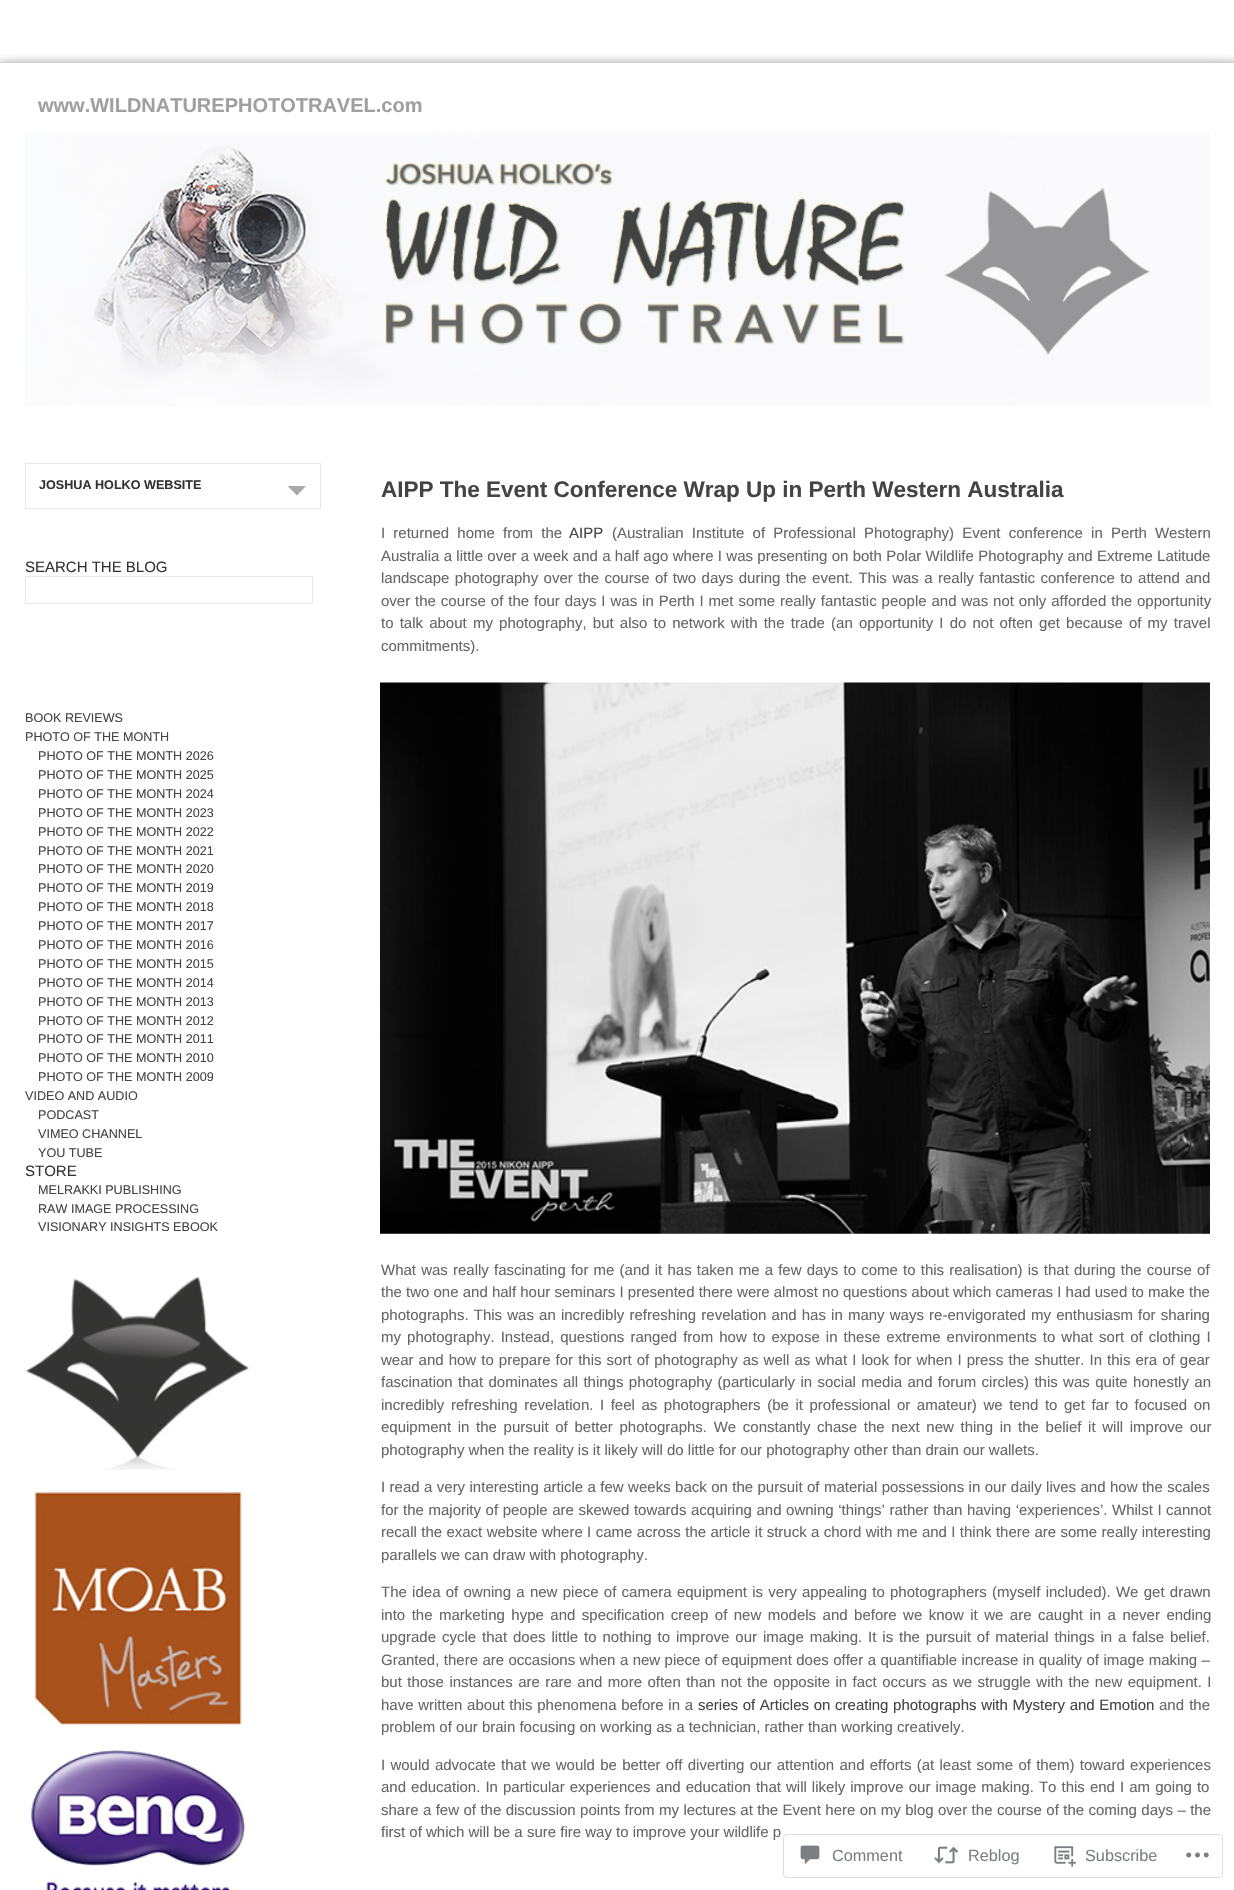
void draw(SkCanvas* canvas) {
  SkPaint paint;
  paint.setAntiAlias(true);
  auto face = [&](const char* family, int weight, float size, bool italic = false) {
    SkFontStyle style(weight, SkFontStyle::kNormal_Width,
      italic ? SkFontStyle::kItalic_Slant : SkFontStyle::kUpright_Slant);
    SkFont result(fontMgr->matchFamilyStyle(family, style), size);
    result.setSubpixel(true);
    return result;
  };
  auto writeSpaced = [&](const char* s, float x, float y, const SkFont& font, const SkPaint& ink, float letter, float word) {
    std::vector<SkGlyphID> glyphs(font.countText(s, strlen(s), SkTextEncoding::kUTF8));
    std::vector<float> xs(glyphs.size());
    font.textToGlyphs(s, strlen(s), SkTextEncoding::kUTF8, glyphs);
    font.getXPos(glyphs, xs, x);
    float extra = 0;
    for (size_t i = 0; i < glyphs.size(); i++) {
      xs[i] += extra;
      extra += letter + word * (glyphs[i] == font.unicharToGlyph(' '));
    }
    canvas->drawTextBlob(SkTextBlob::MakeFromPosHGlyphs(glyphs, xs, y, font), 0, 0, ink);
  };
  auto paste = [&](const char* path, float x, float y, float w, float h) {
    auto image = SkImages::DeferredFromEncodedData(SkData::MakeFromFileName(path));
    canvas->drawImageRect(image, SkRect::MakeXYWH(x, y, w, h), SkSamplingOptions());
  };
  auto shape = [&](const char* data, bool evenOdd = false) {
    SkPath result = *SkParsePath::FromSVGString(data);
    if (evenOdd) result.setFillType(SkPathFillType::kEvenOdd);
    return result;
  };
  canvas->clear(0xffffffff);
  canvas->save();
  canvas->clipRect(SkRect::MakeXYWH(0, 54, 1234, 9));
  paint.setColor(0x30000000);
  paint.setMaskFilter(SkMaskFilter::MakeBlur(kNormal_SkBlurStyle, 12.5f));
  canvas->drawRect(SkRect::MakeXYWH(0, 70, 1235, 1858), paint);
  paint.setMaskFilter(nullptr);
  canvas->restore();
  canvas->save();
  canvas->clipRect(SkRect::MakeXYWH(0, 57, 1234, 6));
  paint.setColor(0x33000000);
  paint.setMaskFilter(SkMaskFilter::MakeBlur(kNormal_SkBlurStyle, 3));
  canvas->drawRect(SkRect::MakeXYWH(-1, 61, 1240, 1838), paint);
  paint.setMaskFilter(nullptr);
  canvas->restore();
  paste("img/1.png", 25, 132, 1185, 274);
  {
    const struct { float x, y, w, h; SkColor color; } items[] = {
      {25, 463, 296, 1, 0xffe8e8e8},
      {320, 463, 1, 46, 0xffe8e8e8},
      {25, 463, 1, 46, 0xffe8e8e8},
      {26, 508, 294, 1, 0xffe8e8e8},
    };
    for (auto [x, y, w, h, color] : items) {
      paint.setColor(color);
      canvas->drawRect(SkRect::MakeXYWH(x, y, w, h), paint);
    }
  }
  paint.setColor(0xffaaaaaa);
  canvas->drawPath(shape("M287.5 486H306L297 495.5Z"), paint);
  paint.setStroke(true);
  paint.setStrokeWidth(1);
  paint.setColor(0xffe8e8e8);
  canvas->drawRect(SkRect::MakeXYWH(25.5f, 576.5f, 287, 27), paint);
  paste("img/2.png", 26, 1276, 223, 194);
  paste("img/3.png", 33, 1491, 209, 235);
  paste("img/4.png", 31, 1749, 215, 141);
  paste("img/5.png", 380, 682, 830, 552);
  paint.setColor(0xfadcdcde);
  canvas->drawRoundRect(SkRect::MakeXYWH(783.5f, 1834.5f, 439, 43), 3.5f, 3.5f, paint);
  paste("img/6.png", 800, 1845, 20, 20);
  paste("img/7.png", 934, 1846, 25, 18);
  paste("img/8.png", 1054, 1846, 22, 21);
  paste("img/9.png", 1186, 1852, 23, 6);
  auto f0 = face("Liberation Sans", 700, 20);
  paint.setStroke(false);
  paint.setColor(0xffa0a0a0);
  canvas->drawString("www.WILDNATUREPHOTOTRAVEL.com", 38, 112, f0, paint);
  auto f1 = face("Liberation Sans", 700, 12.6f);
  paint.setColor(0xff333333);
  canvas->drawString("JOSHUA HOLKO WEBSITE", 39, 489, f1, paint);
  auto f2 = face("Arimo", 400, 15);
  canvas->drawString("SEARCH THE BLOG", 25, 572, f2, paint);
  auto f3 = face("Liberation Sans", 400, 12.6f);
  paint.setColor(0xff444444);
  {
    const struct { const char* s; float x, y; } items[] = {
      {"BOOK REVIEWS", 25, 722},
      {"PHOTO OF THE MONTH", 25, 741},
      {"PHOTO OF THE MONTH 2026", 38, 760},
      {"PHOTO OF THE MONTH 2025", 38, 779},
      {"PHOTO OF THE MONTH 2024", 38, 798},
      {"PHOTO OF THE MONTH 2023", 38, 817},
      {"PHOTO OF THE MONTH 2022", 38, 836},
      {"PHOTO OF THE MONTH 2021", 38, 855},
      {"PHOTO OF THE MONTH 2020", 38, 873},
      {"PHOTO OF THE MONTH 2019", 38, 892},
      {"PHOTO OF THE MONTH 2018", 38, 911},
      {"PHOTO OF THE MONTH 2017", 38, 930},
      {"PHOTO OF THE MONTH 2016", 38, 949},
      {"PHOTO OF THE MONTH 2015", 38, 968},
      {"PHOTO OF THE MONTH 2014", 38, 987},
      {"PHOTO OF THE MONTH 2013", 38, 1006},
      {"PHOTO OF THE MONTH 2012", 38, 1025},
      {"PHOTO OF THE MONTH 2011", 38, 1043},
      {"PHOTO OF THE MONTH 2010", 38, 1062},
      {"PHOTO OF THE MONTH 2009", 38, 1081},
      {"VIDEO AND AUDIO", 25, 1100},
      {"PODCAST", 38, 1119},
      {"VIMEO CHANNEL", 38, 1138},
      {"YOU TUBE", 38, 1157},
    };
    for (auto [s, x, y] : items) {
      canvas->drawString(s, x, y, f3, paint);
    }
  }
  paint.setColor(0xff333333);
  canvas->drawString("STORE", 25, 1176, f2, paint);
  paint.setColor(0xff444444);
  {
    const struct { const char* s; float x, y; } items[] = {
      {"MELRAKKI PUBLISHING", 38, 1194},
      {"RAW IMAGE PROCESSING", 38, 1213},
      {"VISIONARY INSIGHTS EBOOK", 38, 1231},
    };
    for (auto [s, x, y] : items) {
      canvas->drawString(s, x, y, f3, paint);
    }
  }
  auto f4 = face("Liberation Sans", 700, 22.5f);
  canvas->drawString("AIPP The Event Conference Wrap Up in Perth Western Australia", 381, 497, f4, paint);
  auto f5 = face("Liberation Sans", 400, 15);
  paint.setColor(0xff666666);
  writeSpaced("I returned home from the", 381, 538, f5, paint, 0, 4);
  paint.setColor(0xff444444);
  canvas->drawString("AIPP", 569, 538, f5, paint);
  paint.setColor(0xff666666);
  writeSpaced("(Australian Institute of Professional Photography) Event conference in Perth Western", 612, 538, f5, paint, 0, 4);
  writeSpaced("Australia a little over a week and a half ago where I was presenting on both Polar Wildlife Photography and Extreme Latitude", 381, 561, f5, paint, 0, 0.15f);
  writeSpaced("landscape photography over the course of two days during the event. This was a really fantastic conference to attend and", 381, 583, f5, paint, 0, 1.25f);
  writeSpaced("over the course of the four days I was in Perth I met some really fantastic people and was not only afforded the opportunity", 381, 606, f5, paint, 0, 0.75f);
  writeSpaced("to talk about my photography, but also to network with the trade (an opportunity I do not often get because of my travel", 381, 628, f5, paint, 0, 2);
  canvas->drawString("commitments).", 381, 651, f5, paint);
  writeSpaced("What was really fascinating for me (and it has taken me a few days to come to this realisation) is that during the course of", 381, 1275, f5, paint, 0, 1);
  canvas->drawString("the two one and half hour seminars I presented there were almost no questions about which cameras I had used to make the", 381, 1297, f5, paint);
  writeSpaced("photographs. This was an incredibly refreshing revelation and has in many ways re-envigorated my enthusiasm for sharing", 381, 1320, f5, paint, 0, 1);
  writeSpaced("my photography. Instead, questions ranged from how to expose in these extreme environments to what sort of clothing I", 381, 1342, f5, paint, 0, 1.9f);
  writeSpaced("wear and how to prepare for this sort of photography as well as what I look for when I press the shutter. In this era of gear", 381, 1365, f5, paint, 0, 0.9f);
  writeSpaced("fascination that dominates all things photography (particularly in social media and forum circles) this was quite honestly an", 381, 1387, f5, paint, 0, 1.2f);
  writeSpaced("incredibly refreshing revelation. I feel as photographers (be it professional or amateur) we tend to get far to focused on", 381, 1410, f5, paint, 0, 2.4f);
  writeSpaced("equipment in the pursuit of better photographs. We constantly chase the next new thing in the belief it will improve our", 381, 1432, f5, paint, 0, 2.5f);
  canvas->drawString("photography when the reality is it likely will do little for our photography other than drain our wallets.", 381, 1455, f5, paint);
  writeSpaced("I read a very interesting article a few weeks back on the pursuit of material possessions in our daily lives and how the scales", 381, 1492, f5, paint, 0, 0.25f);
  writeSpaced("for the majority of people are skewed towards acquiring and owning ‘things’ rather than having ‘experiences’. Whilst I cannot", 381, 1515, f5, paint, 0, 0.4f);
  writeSpaced("recall the exact website where I came across the article it struck a chord with me and I think there are some really interesting", 381, 1537, f5, paint, 0, 0.2f);
  canvas->drawString("parallels we can draw with photography.", 381, 1560, f5, paint);
  writeSpaced("The idea of owning a new piece of camera equipment is very appealing to photographers (myself included). We get drawn", 381, 1597, f5, paint, 0, 1.1f);
  writeSpaced("into the marketing hype and specification creep of new models and before we know it we are caught in a never ending", 381, 1620, f5, paint, 0, 2.3f);
  writeSpaced("upgrade cycle that does little to nothing to improve our image making. It is the pursuit of material things in a false belief.", 381, 1642, f5, paint, 0, 1.75f);
  writeSpaced("Granted, there are occasions when a new piece of equipment does offer a quantifiable increase in quality of image making –", 381, 1665, f5, paint, 0, 0.25f);
  writeSpaced("but those instances are rare and more often than not the opposite in fact occurs as we struggle with the new equipment. I", 381, 1687, f5, paint, 0, 1.25f);
  writeSpaced("have written about this phenomena before in a", 381, 1710, f5, paint, 0, 0.5f);
  paint.setColor(0xff444444);
  writeSpaced("series of Articles on creating photographs with Mystery and Emotion", 698, 1710, f5, paint, 0, 0.5f);
  paint.setColor(0xff666666);
  writeSpaced("and the", 1159, 1710, f5, paint, 0, 1);
  canvas->drawString("problem of our brain focusing on working as a technician, rather than working creatively.", 381, 1732, f5, paint);
  writeSpaced("I would advocate that we would be better off diverting our attention and efforts (at least some of them) toward experiences", 381, 1770, f5, paint, 0, 1.1f);
  writeSpaced("and education. In particular experiences and education that will likely improve our image making. To this end I am going to", 381, 1792, f5, paint, 0, 0.9f);
  writeSpaced("share a few of the discussion points from my lectures at the Event here on my blog over the course of the coming days – the", 381, 1815, f5, paint, 0, 0.25f);
  canvas->drawString("first of which will be a sure fire way to improve your wildlife p", 381, 1837, f5, paint);
  auto f6 = face("Liberation Sans", 400, 16.25f);
  paint.setColor(0xff7b7f85);
  {
    const struct { const char* s; float x, y; } items[] = {
      {"Comment", 832, 1861},
      {"Reblog", 968, 1861},
      {"Subscribe", 1085, 1861},
    };
    for (auto [s, x, y] : items) {
      canvas->drawString(s, x, y, f6, paint);
    }
  }
}
